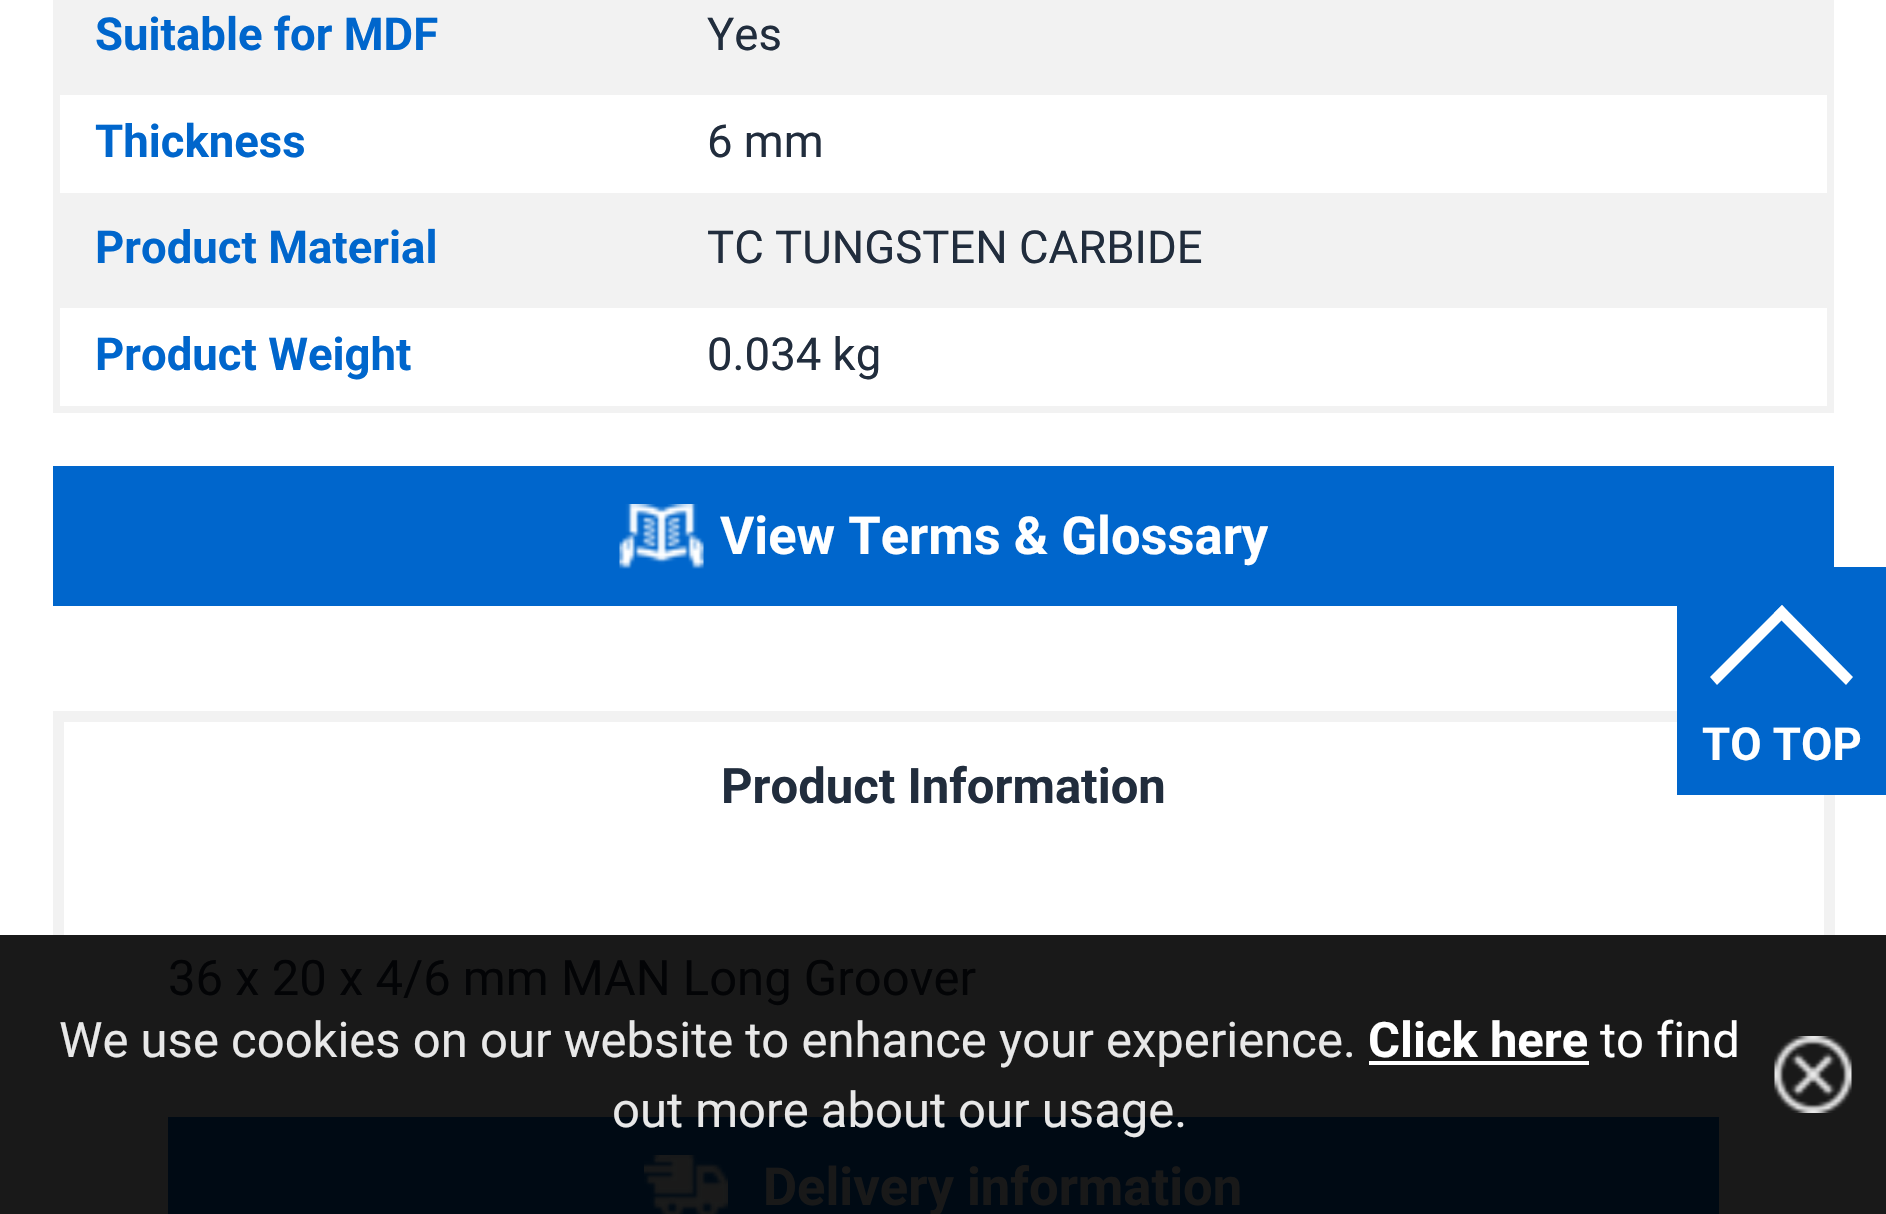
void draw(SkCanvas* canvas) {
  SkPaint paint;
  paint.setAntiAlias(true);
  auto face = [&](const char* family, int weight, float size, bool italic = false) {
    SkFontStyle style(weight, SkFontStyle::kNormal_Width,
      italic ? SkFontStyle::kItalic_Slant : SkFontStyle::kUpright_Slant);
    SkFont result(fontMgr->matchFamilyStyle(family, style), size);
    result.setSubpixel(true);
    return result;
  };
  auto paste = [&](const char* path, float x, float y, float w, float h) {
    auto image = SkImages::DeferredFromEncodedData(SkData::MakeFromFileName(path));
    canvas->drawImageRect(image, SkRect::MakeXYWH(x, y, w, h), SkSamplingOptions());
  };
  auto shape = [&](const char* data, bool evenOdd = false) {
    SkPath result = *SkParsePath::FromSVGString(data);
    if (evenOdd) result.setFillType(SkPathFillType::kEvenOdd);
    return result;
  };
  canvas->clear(0xffffffff);
  paint.setColor(0xff191919);
  canvas->drawRect(SkRect::MakeXYWH(0, 935, 1886, 279), paint);
  paint.setStroke(true);
  paint.setStrokeWidth(7);
  paint.setColor(0xfff2f2f2);
  canvas->drawRect(SkRect::MakeXYWH(56.5f, -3.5f, 1774, 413), paint);
  paint.setStroke(false);
  {
    const struct { float x, y, w, h; SkColor color; } items[] = {
      {60, 0, 1767, 95, 0xfff2f2f2},
      {60, 193, 1767, 115, 0xfff2f2f2},
      {53, 466, 1781, 140, 0xff0066cc},
    };
    for (auto [x, y, w, h, color] : items) {
      paint.setColor(color);
      canvas->drawRect(SkRect::MakeXYWH(x, y, w, h), paint);
    }
  }
  paste("img/1.png", 619, 504, 85, 65);
  {
    const struct { float x, y, w, h; SkColor color; } items[] = {
      {64, 711, 1613, 11, 0xfff2f2f2},
      {1824, 795, 11, 140, 0xfff2f2f2},
      {53, 711, 11, 224, 0xfff2f2f2},
      {168, 1117, 1551, 97, 0xff000a14},
    };
    for (auto [x, y, w, h, color] : items) {
      paint.setColor(color);
      canvas->drawRect(SkRect::MakeXYWH(x, y, w, h), paint);
    }
  }
  paste("img/2.png", 644, 1155, 84, 59);
  paint.setColor(0xffffffff);
  canvas->drawRect(SkRect::MakeXYWH(1369, 1061, 220, 4), paint);
  paste("img/3.png", 1774, 1036, 78, 77);
  paint.setColor(0xff0066cc);
  canvas->drawRect(SkRect::MakeXYWH(1677, 567, 209, 228), paint);
  paint.setColor(0xffffffff);
  canvas->drawPath(shape("M1710 677L1782 605L1789 613L1717 685Z"), paint);
  canvas->drawPath(shape("M1774 613L1782 605L1853 677L1846 685Z"), paint);
  auto f0 = face("Roboto", 700, 45.5f);
  paint.setColor(0xff0066cc);
  canvas->drawString("Suitable for MDF", 95, 50, f0, paint);
  auto f1 = face("Roboto", 400, 45.5f);
  paint.setColor(0xff212d3d);
  canvas->drawString("Yes", 707, 50, f1, paint);
  paint.setColor(0xff0066cc);
  canvas->drawString("Thickness", 95, 157, f0, paint);
  paint.setColor(0xff212d3d);
  canvas->drawString("6 mm", 707, 157, f1, paint);
  paint.setColor(0xff0066cc);
  canvas->drawString("Product Material", 95, 263, f0, paint);
  paint.setColor(0xff212d3d);
  canvas->drawString("TC TUNGSTEN CARBIDE", 707, 263, f1, paint);
  paint.setColor(0xff0066cc);
  canvas->drawString("Product Weight", 95, 370, f0, paint);
  paint.setColor(0xff212d3d);
  canvas->drawString("0.034 kg", 707, 370, f1, paint);
  auto f2 = face("Roboto", 700, 52.5f);
  paint.setColor(0xffffffff);
  canvas->drawString("View Terms & Glossary", 720, 554, f2, paint);
  auto f3 = face("Roboto", 700, 49);
  paint.setColor(0xff212d3d);
  canvas->drawString("Product Information", 721, 803, f3, paint);
  auto f4 = face("Roboto", 400, 49);
  paint.setColor(0xff030406);
  canvas->drawString("36 x 20 x 4/6 mm MAN Long Groover", 168, 995, f4, paint);
  paint.setColor(0xff191919);
  canvas->drawString("Delivery information", 763, 1205, f2, paint);
  paint.setColor(0xffe8e8e8);
  canvas->drawString("We use cookies on our website to enhance your experience.", 59, 1057, f4, paint);
  paint.setColor(0xffffffff);
  canvas->drawString("Click here", 1368, 1057, f3, paint);
  canvas->drawString("to find", 1600, 1057, f4, paint);
  paint.setColor(0xffe8e8e8);
  canvas->drawString("out more about our usage.", 612, 1127, f4, paint);
  paint.setColor(0xffffffff);
  canvas->drawString("TO TOP", 1702, 760, f0, paint);
}
